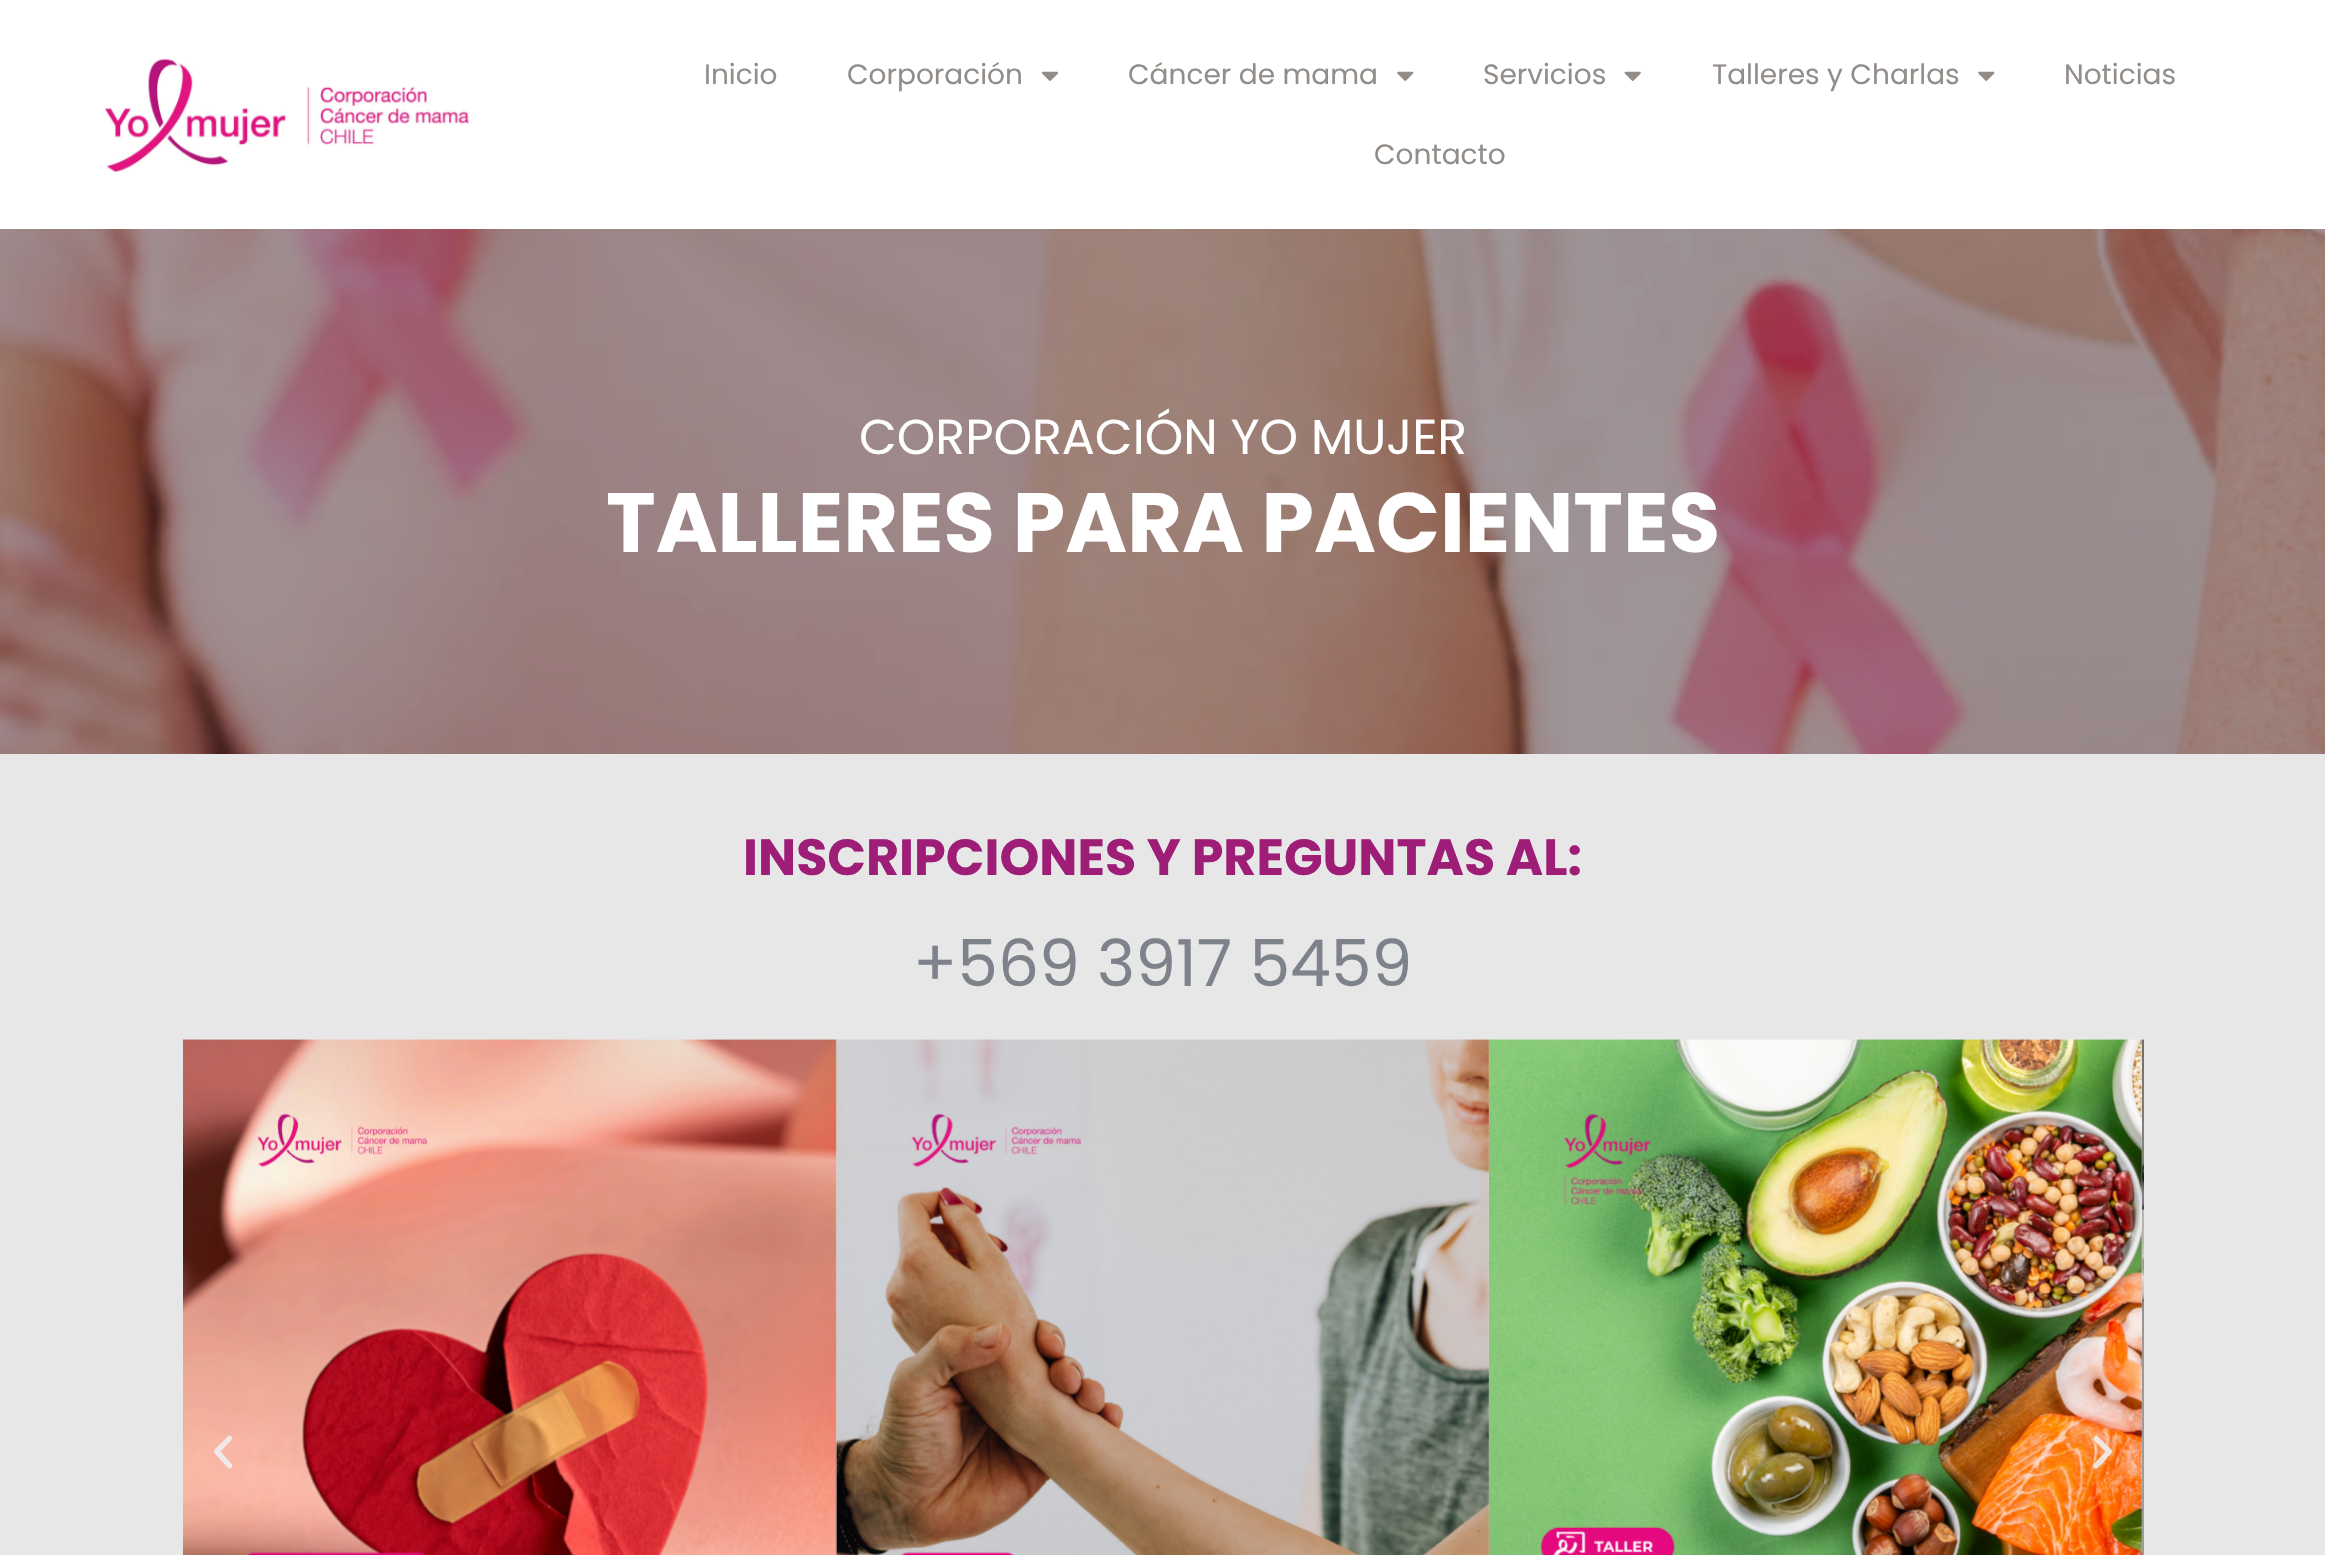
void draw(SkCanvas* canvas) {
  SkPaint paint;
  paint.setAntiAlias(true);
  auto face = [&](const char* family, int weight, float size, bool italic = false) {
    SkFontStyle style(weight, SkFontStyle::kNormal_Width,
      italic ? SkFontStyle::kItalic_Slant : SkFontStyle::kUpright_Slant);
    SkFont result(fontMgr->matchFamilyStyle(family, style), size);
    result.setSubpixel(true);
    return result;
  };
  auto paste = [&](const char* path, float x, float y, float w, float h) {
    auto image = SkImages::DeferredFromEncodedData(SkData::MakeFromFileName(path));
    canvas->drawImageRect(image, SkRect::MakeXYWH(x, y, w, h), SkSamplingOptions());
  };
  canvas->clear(0xffffffff);
  paste("img/1.png", 105, 58, 364, 114);
  paste("img/2.png", 1041, 71, 18, 10);
  paste("img/3.png", 1397, 71, 17, 10);
  paste("img/4.png", 1624, 71, 17, 10);
  paste("img/3.png", 1978, 71, 17, 10);
  paste("img/5.png", 0, 229, 2325, 525);
  paint.setColor(0xffe7e7e7);
  canvas->drawRect(SkRect::MakeXYWH(0, 754, 2325, 801), paint);
  paste("img/6.png", 183, 1039, 654, 516);
  paste("img/7.png", 835, 1039, 655, 516);
  paste("img/8.png", 1489, 1039, 654, 516);
  paste("img/9.png", 2142, 1039, 2, 516);
  paste("img/10.png", 214, 1435, 19, 34);
  paste("img/11.png", 2093, 1435, 19, 34);
  auto f0 = face("Poppins", 400, 28);
  paint.setColor(0xff928d89);
  {
    const struct { const char* s; float x, y; } items[] = {
      {"Inicio", 704, 84},
      {"Corporación", 847, 84},
      {"Cáncer de mama", 1128, 84},
      {"Servicios", 1483, 84},
      {"Talleres y Charlas", 1712, 84},
      {"Noticias", 2064, 84},
      {"Contacto", 1374, 164},
    };
    for (auto [s, x, y] : items) {
      canvas->drawString(s, x, y, f0, paint);
    }
  }
  auto f1 = face("Poppins", 400, 49);
  paint.setColor(0xffffffff);
  canvas->drawString("CORPORACIÓN YO MUJER", 859, 454, f1, paint);
  auto f2 = face("Poppins", 700, 84);
  canvas->drawString("TALLERES PARA PACIENTES", 606, 552, f2, paint);
  auto f3 = face("Poppins", 700, 50.75f);
  paint.setColor(0xff9d1d77);
  canvas->drawString("INSCRIPCIONES Y PREGUNTAS AL:", 743, 875, f3, paint);
  auto f4 = face("Poppins", 400, 64.75f);
  paint.setColor(0xff7e838b);
  canvas->drawString("+569 3917 5459", 913, 986, f4, paint);
}
